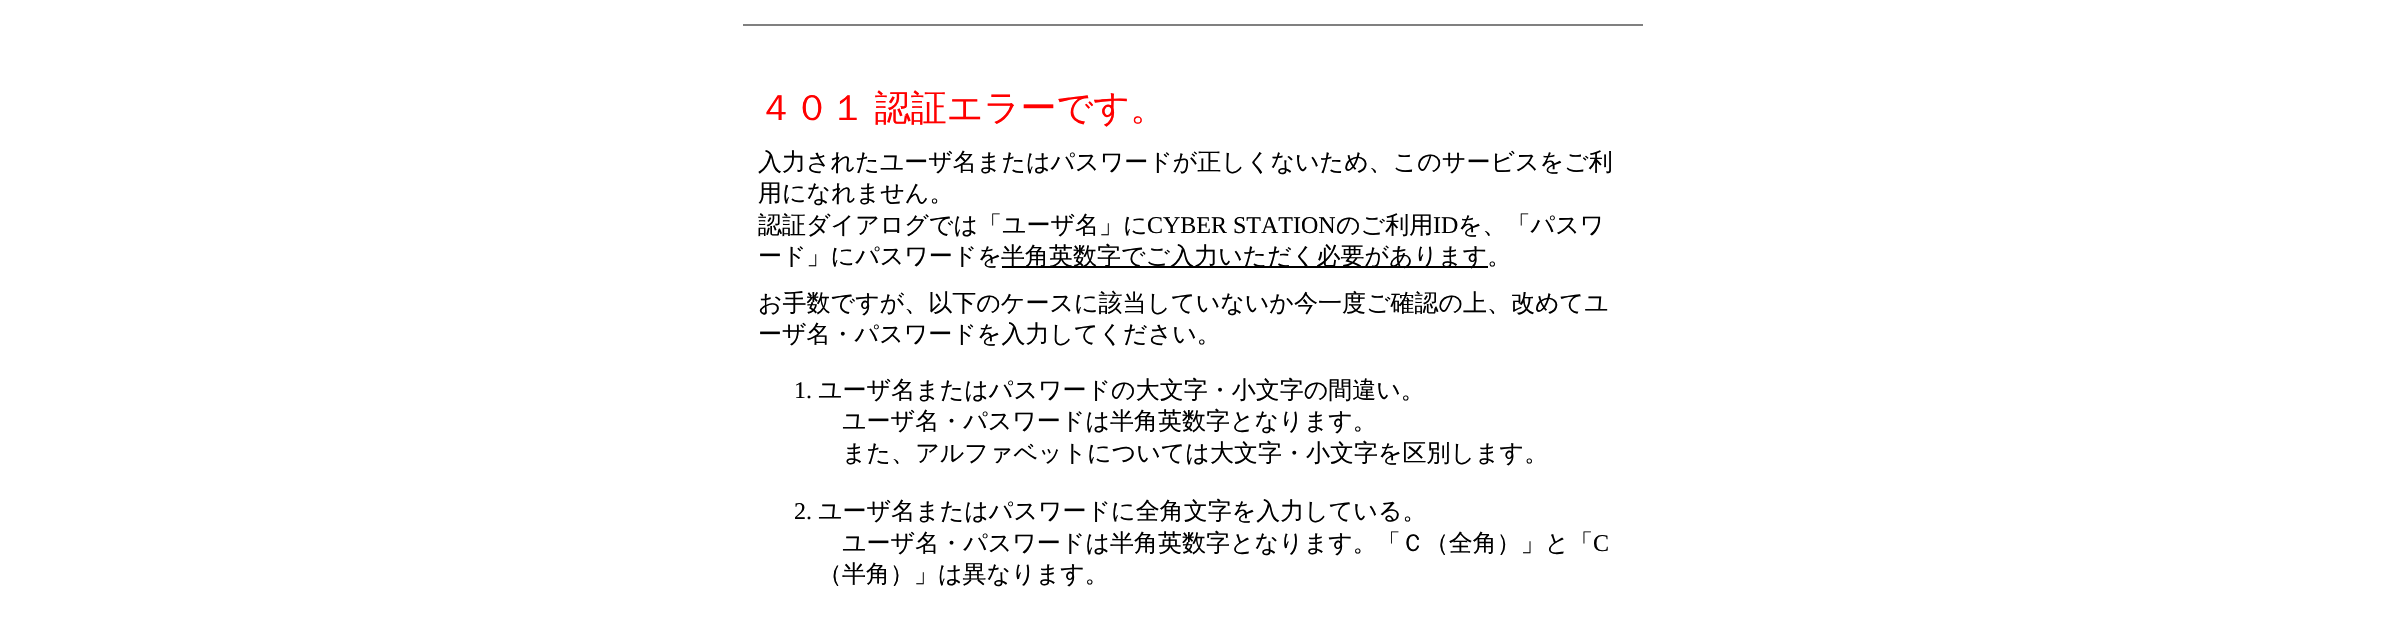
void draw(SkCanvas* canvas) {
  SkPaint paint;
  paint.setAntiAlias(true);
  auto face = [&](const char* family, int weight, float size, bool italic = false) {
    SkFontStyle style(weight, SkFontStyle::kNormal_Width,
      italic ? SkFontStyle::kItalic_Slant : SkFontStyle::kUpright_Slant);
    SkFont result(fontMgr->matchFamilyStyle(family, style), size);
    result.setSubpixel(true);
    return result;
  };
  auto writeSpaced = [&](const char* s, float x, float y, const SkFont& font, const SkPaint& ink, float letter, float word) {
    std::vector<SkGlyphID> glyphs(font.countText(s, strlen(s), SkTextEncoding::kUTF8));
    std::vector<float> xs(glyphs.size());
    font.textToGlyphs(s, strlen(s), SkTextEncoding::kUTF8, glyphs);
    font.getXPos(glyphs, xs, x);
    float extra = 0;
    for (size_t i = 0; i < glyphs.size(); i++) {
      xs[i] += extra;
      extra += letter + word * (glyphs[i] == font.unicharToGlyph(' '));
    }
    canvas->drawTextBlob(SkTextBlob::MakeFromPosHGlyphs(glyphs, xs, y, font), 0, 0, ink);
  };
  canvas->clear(0xffffffff);
  paint.setColor(0xff808080);
  canvas->drawRect(SkRect::MakeXYWH(743, 24, 900, 2), paint);
  paint.setColor(0xff000000);
  canvas->drawRect(SkRect::MakeXYWH(1002, 266, 486, 2), paint);
  auto f0 = face("WenQuanYi Zen Hei", 500, 36);
  paint.setColor(0xffff0000);
  writeSpaced("４０１ 認証エラーです。", 758, 120, f0, paint, 0, -2);
  auto f1 = face("WenQuanYi Zen Hei", 500, 24);
  paint.setColor(0xff000000);
  {
    const struct { const char* s; float x, y; } items[] = {
      {"入力されたユーザ名またはパスワードが正しくないため、このサービスをご利", 758, 170},
      {"用になれません。", 758, 201},
      {"認証ダイアログでは「ユーザ名」に", 758, 233},
    };
    for (auto [s, x, y] : items) {
      canvas->drawString(s, x, y, f1, paint);
    }
  }
  auto f2 = face("Liberation Serif", 400, 24);
  canvas->drawString("CYBER STATION", 1147, 233, f2, paint);
  canvas->drawString("のご利用", 1336, 233, f1, paint);
  canvas->drawString("ID", 1433, 233, f2, paint);
  {
    const struct { const char* s; float x, y; } items[] = {
      {"を、「パスワ", 1458, 233},
      {"ード」にパスワードを", 758, 264},
      {"半角英数字でご入力いただく必要があります。", 1001, 264},
      {"お手数ですが、以下のケースに該当していないか今一度ご確認の上、改めてユ", 758, 311},
      {"ーザ名・パスワードを入力してください。", 758, 342},
    };
    for (auto [s, x, y] : items) {
      canvas->drawString(s, x, y, f1, paint);
    }
  }
  canvas->drawString("1.", 794, 398, f2, paint);
  {
    const struct { const char* s; float x, y; } items[] = {
      {"ユーザ名またはパスワードの大文字・小文字の間違い。", 818, 398},
      {"ユーザ名・パスワードは半角英数字となります。", 842, 429},
      {"また、アルファベットについては大文字・小文字を区別します。", 842, 461},
    };
    for (auto [s, x, y] : items) {
      canvas->drawString(s, x, y, f1, paint);
    }
  }
  canvas->drawString("2.", 794, 519, f2, paint);
  canvas->drawString("ユーザ名またはパスワードに全角文字を入力している。", 818, 519, f1, paint);
  canvas->drawString("ユーザ名・パスワードは半角英数字となります。「Ｃ（全角）」と「", 842, 551, f1, paint);
  canvas->drawString("C", 1593, 551, f2, paint);
  canvas->drawString("（半角）」は異なります。", 818, 582, f1, paint);
}
